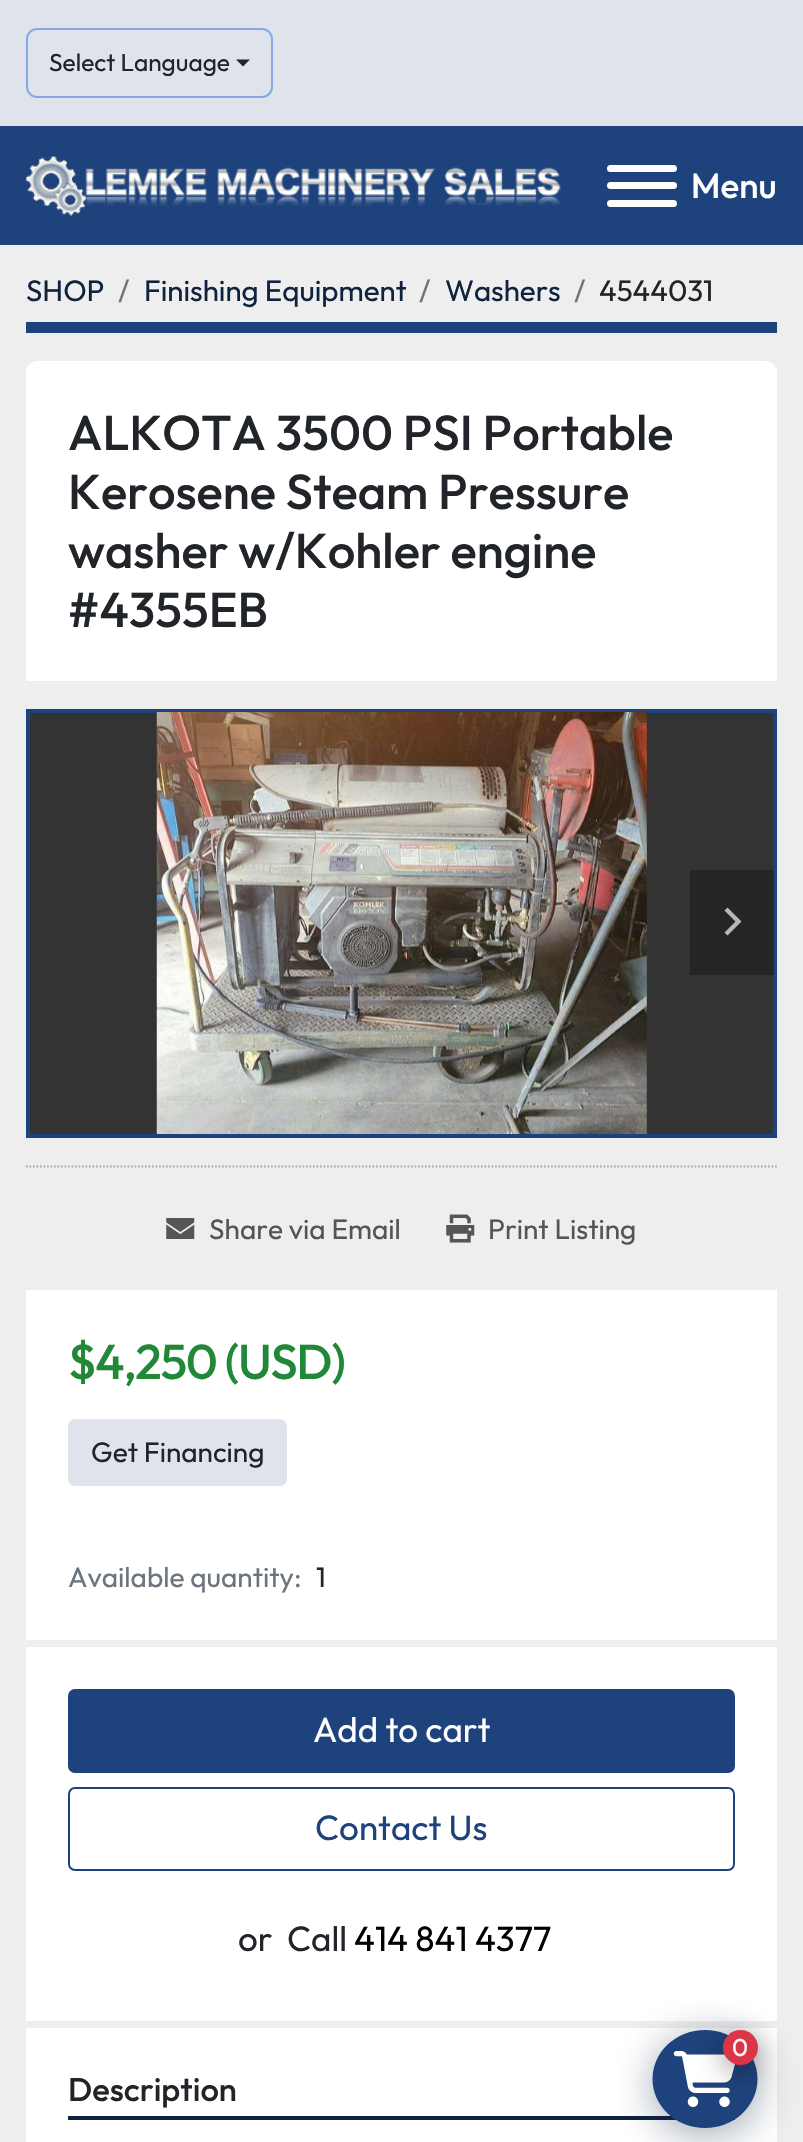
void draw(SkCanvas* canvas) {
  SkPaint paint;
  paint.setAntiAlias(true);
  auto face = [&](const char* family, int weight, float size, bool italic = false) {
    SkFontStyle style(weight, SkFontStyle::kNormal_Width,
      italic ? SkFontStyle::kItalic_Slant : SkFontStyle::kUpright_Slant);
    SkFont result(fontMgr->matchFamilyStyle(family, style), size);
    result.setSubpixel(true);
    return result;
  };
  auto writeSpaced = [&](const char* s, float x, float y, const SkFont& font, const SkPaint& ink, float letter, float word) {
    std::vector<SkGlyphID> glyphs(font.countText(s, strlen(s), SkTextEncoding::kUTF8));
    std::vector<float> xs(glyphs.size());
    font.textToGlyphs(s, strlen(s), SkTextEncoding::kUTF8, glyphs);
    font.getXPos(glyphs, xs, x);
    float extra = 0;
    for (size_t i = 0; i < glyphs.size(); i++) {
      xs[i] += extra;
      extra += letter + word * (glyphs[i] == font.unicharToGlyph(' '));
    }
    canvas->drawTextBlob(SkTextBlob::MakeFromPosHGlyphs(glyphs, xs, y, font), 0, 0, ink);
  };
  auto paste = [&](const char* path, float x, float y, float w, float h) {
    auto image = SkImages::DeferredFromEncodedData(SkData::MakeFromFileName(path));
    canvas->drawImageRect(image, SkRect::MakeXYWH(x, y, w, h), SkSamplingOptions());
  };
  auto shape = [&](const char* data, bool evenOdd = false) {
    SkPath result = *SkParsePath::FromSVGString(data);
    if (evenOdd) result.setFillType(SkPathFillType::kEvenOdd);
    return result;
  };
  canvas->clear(0xffeeeeee);
  paint.setColor(0xffdfe4ec);
  canvas->drawRect(SkRect::MakeXYWH(0, 0, 803, 126), paint);
  paint.setStroke(true);
  paint.setStrokeWidth(2);
  paint.setColor(0xff85a9e1);
  canvas->drawRoundRect(SkRect::MakeXYWH(27, 29, 245, 68), 10, 10, paint);
  paint.setStroke(false);
  paint.setColor(0xff212529);
  canvas->drawPath(shape("M236 59.5H250L243 66.5Z"), paint);
  paint.setColor(0xff1e437c);
  canvas->drawRect(SkRect::MakeXYWH(0, 126, 803, 119), paint);
  paste("img/1.png", 26, 155, 535, 61);
  paint.setColor(0xffffffff);
  canvas->drawRoundRect(SkRect::MakeXYWH(607, 182, 70, 7), 3.5f, 3.5f, paint);
  canvas->drawRoundRect(SkRect::MakeXYWH(607, 165, 70, 7), 3.5f, 3.5f, paint);
  canvas->drawRoundRect(SkRect::MakeXYWH(607, 200, 70, 7), 3.5f, 3.5f, paint);
  paint.setColor(0xff1e437c);
  canvas->drawRect(SkRect::MakeXYWH(26, 322, 751, 11), paint);
  paint.setColor(0xffffffff);
  canvas->drawPath(shape("M37 361H766C772 361 777 366 777 372V681H26V372C26 366 31 361 37 361Z"), paint);
  paint.setColor(0xff333333);
  canvas->drawRect(SkRect::MakeXYWH(28, 711, 747, 425), paint);
  paint.setStroke(true);
  paint.setStrokeWidth(4);
  paint.setColor(0xff1e437c);
  canvas->drawRect(SkRect::MakeXYWH(28, 711, 747, 425), paint);
  paste("img/2.png", 156, 712, 491, 422);
  paint.setStroke(false);
  paint.setColor(0x4a000000);
  canvas->drawRect(SkRect::MakeXYWH(690, 870, 84, 105), paint);
  paint.setColor(0xffb8b8b8);
  canvas->drawPath(shape("M741.5 921.5L727.5 935.5L724.5 932.5L735.5 921.5L724.5 910.5L727.5 907.5Z"), paint);
  paint.setStroke(true);
  paint.setStrokeWidth(1.8f);
  paint.setColor(0xffaaaaaa);
  paint.setPathEffect(SkDashPathEffect::Make({{1.75f, 1.75f}}, 0));
  canvas->drawPath(shape("M26 1166.5H777"), paint);
  paint.setPathEffect(nullptr);
  paste("img/3.png", 166, 1218, 29, 21);
  paste("img/4.png", 446, 1214, 29, 29);
  paint.setStroke(false);
  paint.setColor(0xffffffff);
  canvas->drawRect(SkRect::MakeXYWH(26, 1290, 751, 852), paint);
  paint.setColor(0xffdfe4ec);
  canvas->drawRoundRect(SkRect::MakeXYWH(69, 1420, 217, 65), 6, 6, paint);
  paint.setStroke(true);
  paint.setStrokeWidth(2);
  canvas->drawRoundRect(SkRect::MakeXYWH(69, 1420, 217, 65), 6, 6, paint);
  paint.setStroke(false);
  paint.setColor(0xffeeeeee);
  canvas->drawRect(SkRect::MakeXYWH(26, 1640, 751, 7), paint);
  canvas->drawRect(SkRect::MakeXYWH(26, 2021, 751, 7), paint);
  paint.setColor(0xff1e437c);
  canvas->drawRoundRect(SkRect::MakeXYWH(69, 1690, 665, 82), 6, 6, paint);
  paint.setStroke(true);
  canvas->drawRoundRect(SkRect::MakeXYWH(69, 1690, 665, 82), 6, 6, paint);
  canvas->drawRoundRect(SkRect::MakeXYWH(69, 1788, 665, 82), 6, 6, paint);
  paint.setStroke(false);
  paint.setColor(0xff0f223e);
  canvas->drawRect(SkRect::MakeXYWH(68, 2116, 667, 4), paint);
  paint.setColor(0x660f223e);
  paint.setMaskFilter(SkMaskFilter::MakeBlur(kNormal_SkBlurStyle, 21));
  canvas->drawRoundRect(SkRect::MakeXYWH(653, 2037, 105, 98), 49, 49, paint);
  paint.setMaskFilter(nullptr);
  paint.setColor(0xff1e437c);
  canvas->drawOval(SkRect::MakeXYWH(652.5f, 2030, 105, 98), paint);
  paste("img/5.png", 673, 2051, 62, 56);
  paint.setColor(0x66000000);
  paint.setMaskFilter(SkMaskFilter::MakeBlur(kNormal_SkBlurStyle, 14));
  canvas->drawRoundRect(SkRect::MakeXYWH(723, 2037, 35, 35), 17.5f, 17.5f, paint);
  paint.setMaskFilter(nullptr);
  paint.setColor(0xffdc3545);
  canvas->drawCircle(740.5f, 2047.5f, 17.5f, paint);
  auto f0 = face("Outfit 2", 100, 24.5f);
  paint.setColor(0xff212529);
  canvas->drawString("Select Language", 49, 71, f0, paint);
  auto f1 = face("Outfit", 100, 35);
  paint.setColor(0xffffffff);
  canvas->drawString("Menu", 691, 198, f1, paint);
  auto f2 = face("Outfit 2", 100, 29.5f);
  paint.setColor(0xff0f223e);
  canvas->drawString("SHOP", 26, 301, f2, paint);
  paint.setColor(0xff6c757d);
  canvas->drawString("/", 118, 301, f2, paint);
  paint.setColor(0xff0f223e);
  canvas->drawString("Finishing Equipment", 144, 301, f2, paint);
  paint.setColor(0xff6c757d);
  canvas->drawString("/", 419, 301, f2, paint);
  paint.setColor(0xff0f223e);
  canvas->drawString("Washers", 445, 301, f2, paint);
  paint.setColor(0xff6c757d);
  canvas->drawString("/", 574, 301, f2, paint);
  paint.setColor(0xff212529);
  canvas->drawString("4544031", 599, 301, f2, paint);
  auto f3 = face("Outfit", 100, 49);
  {
    const struct { const char* s; float x, y; } items[] = {
      {"ALKOTA 3500 PSI Portable", 68, 450},
      {"Kerosene Steam Pressure", 68, 509},
      {"washer w/Kohler engine", 68, 568},
      {"#4355EB", 68, 627},
    };
    for (auto [s, x, y] : items) {
      canvas->drawString(s, x, y, f3, paint);
    }
  }
  auto f4 = face("Outfit 2", 100, 28);
  paint.setColor(0xff555555);
  canvas->drawString("Share via Email", 209, 1239, f4, paint);
  canvas->drawString("Print Listing", 488, 1239, f4, paint);
  paint.setColor(0xff218838);
  writeSpaced("$4,250 (USD)", 68, 1379, f3, paint, -1.4f, 0);
  paint.setColor(0xff212529);
  canvas->drawString("Get Financing", 91, 1462, f4, paint);
  paint.setColor(0xff6c757d);
  canvas->drawString("Available quantity:", 68, 1587, f4, paint);
  paint.setColor(0xff212529);
  canvas->drawString("1", 316, 1587, f4, paint);
  auto f5 = face("Outfit 2", 100, 35);
  paint.setColor(0xffffffff);
  canvas->drawString("Add to cart", 313, 1742, f5, paint);
  paint.setColor(0xff1e437c);
  canvas->drawString("Contact Us", 315, 1840, f5, paint);
  paint.setColor(0xff212529);
  canvas->drawString("or", 238, 1951, f5, paint);
  canvas->drawString("Call", 287, 1951, f5, paint);
  paint.setColor(0xff000000);
  canvas->drawString("414 841 4377", 354, 1951, f5, paint);
  auto f6 = face("Outfit", 100, 32.75f);
  paint.setColor(0xff212529);
  canvas->drawString("Description", 68, 2101, f6, paint);
  paint.setColor(0xffffffff);
  canvas->drawString("0", 732, 2056, f0, paint);
}
